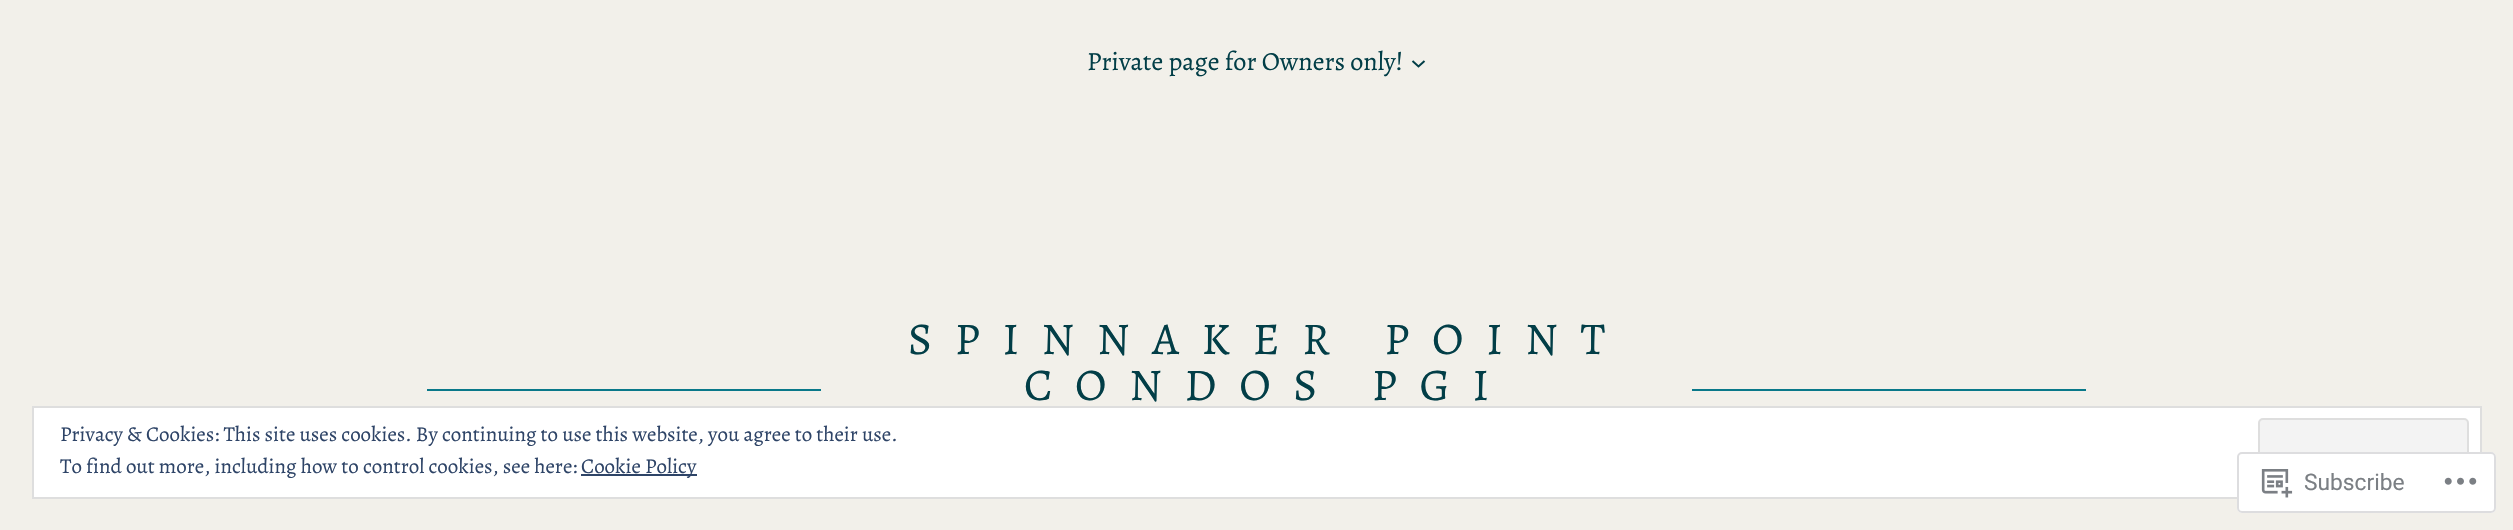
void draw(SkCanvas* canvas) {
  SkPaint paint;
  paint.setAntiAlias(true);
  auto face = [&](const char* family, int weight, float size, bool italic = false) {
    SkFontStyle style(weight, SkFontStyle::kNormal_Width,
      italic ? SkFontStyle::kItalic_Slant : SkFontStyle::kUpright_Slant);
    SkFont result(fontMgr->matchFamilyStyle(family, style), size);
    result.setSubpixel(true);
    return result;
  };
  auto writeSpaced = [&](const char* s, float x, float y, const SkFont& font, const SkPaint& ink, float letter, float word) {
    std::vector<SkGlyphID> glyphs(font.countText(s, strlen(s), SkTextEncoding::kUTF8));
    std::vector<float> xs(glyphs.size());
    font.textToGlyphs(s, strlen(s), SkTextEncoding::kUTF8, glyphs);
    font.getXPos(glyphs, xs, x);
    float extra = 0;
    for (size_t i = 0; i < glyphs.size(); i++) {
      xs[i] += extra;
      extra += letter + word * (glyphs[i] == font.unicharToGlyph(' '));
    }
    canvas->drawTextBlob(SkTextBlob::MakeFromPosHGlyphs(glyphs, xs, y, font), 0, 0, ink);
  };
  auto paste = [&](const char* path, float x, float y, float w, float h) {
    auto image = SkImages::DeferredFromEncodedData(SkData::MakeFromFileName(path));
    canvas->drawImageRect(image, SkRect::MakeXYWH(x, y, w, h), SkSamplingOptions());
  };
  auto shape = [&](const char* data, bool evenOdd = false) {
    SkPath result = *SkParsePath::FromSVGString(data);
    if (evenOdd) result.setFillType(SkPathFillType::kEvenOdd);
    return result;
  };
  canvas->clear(0xfff2f0ea);
  paint.setStroke(true);
  paint.setStrokeWidth(2);
  paint.setColor(0xff023e47);
  canvas->drawPath(shape("M1412.5 61L1418.5 66.5L1424.5 61"), paint);
  paint.setStroke(false);
  paint.setColor(0xff097889);
  canvas->drawRect(SkRect::MakeXYWH(427, 389, 394, 2), paint);
  canvas->drawRect(SkRect::MakeXYWH(1692, 389, 394, 2), paint);
  paint.setColor(0xffffffff);
  canvas->drawRect(SkRect::MakeXYWH(33, 407, 2448, 91), paint);
  paint.setStroke(true);
  paint.setColor(0xffdedede);
  canvas->drawRect(SkRect::MakeXYWH(33, 407, 2448, 91), paint);
  paint.setStroke(false);
  paint.setColor(0xfff3f3f3);
  canvas->drawRoundRect(SkRect::MakeXYWH(2259, 419, 209, 67), 4, 4, paint);
  paint.setStroke(true);
  paint.setColor(0xffdedede);
  canvas->drawRoundRect(SkRect::MakeXYWH(2259, 419, 209, 67), 4, 4, paint);
  paint.setStroke(false);
  paint.setColor(0xff2e4467);
  canvas->drawRect(SkRect::MakeXYWH(581, 474, 116, 2), paint);
  paint.setColor(0xfaffffff);
  canvas->drawRoundRect(SkRect::MakeXYWH(2237, 452, 259, 61), 5, 5, paint);
  paint.setStroke(true);
  paint.setColor(0xfadcdcde);
  canvas->drawRoundRect(SkRect::MakeXYWH(2238, 453, 257, 59), 4, 4, paint);
  paste("img/1.png", 2261, 469, 32, 29);
  paste("img/2.png", 2444, 477, 33, 8);
  auto f0 = face("Alegreya", 400, 26.25f);
  paint.setStroke(false);
  paint.setColor(0xff023e47);
  canvas->drawString("Private page for Owners only!", 1087, 70, f0, paint);
  auto f1 = face("Alegreya", 400, 45.4f);
  writeSpaced("SPINNAKER POINT", 908, 354, f1, paint, 22.7f, 0);
  writeSpaced("CONDOS PGI", 1024, 400, f1, paint, 22.7f, 0);
  auto f2 = face("Alegreya", 400, 21);
  paint.setColor(0xff2e4467);
  {
    const struct { const char* s; float x, y; } items[] = {
      {"Privacy & Cookies: This site uses cookies. By continuing to use this website, you agree to their use.", 60, 441},
      {"To find out more, including how to control cookies, see here:", 60, 473},
      {"Cookie Policy", 581, 473},
    };
    for (auto [s, x, y] : items) {
      canvas->drawString(s, x, y, f2, paint);
    }
  }
  auto f3 = face("Roboto", 400, 22.75f);
  paint.setColor(0xff7b7f84);
  canvas->drawString("Subscribe", 2304, 490, f3, paint);
}
